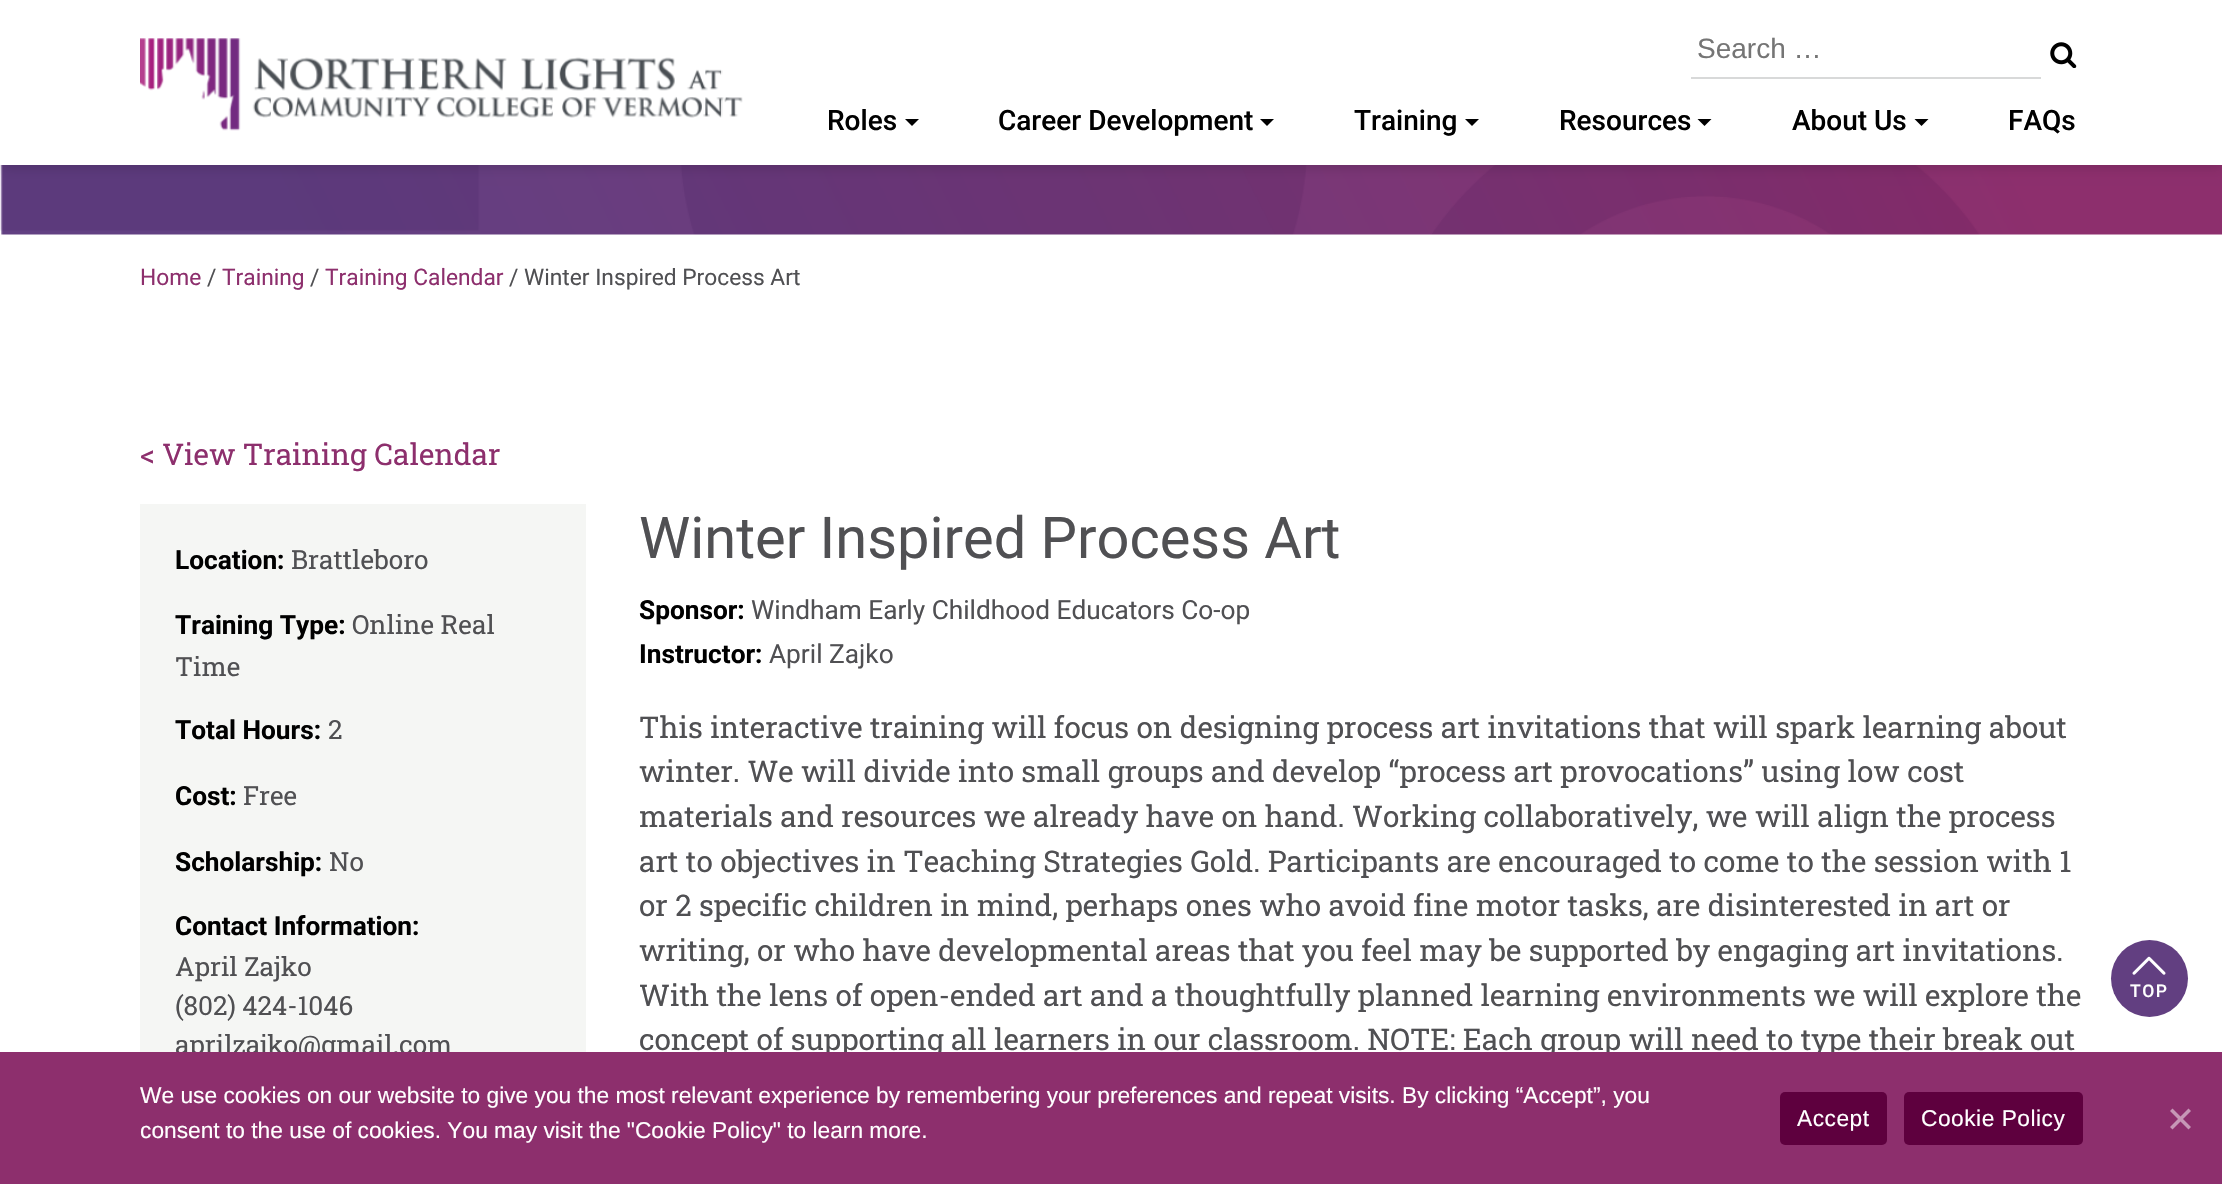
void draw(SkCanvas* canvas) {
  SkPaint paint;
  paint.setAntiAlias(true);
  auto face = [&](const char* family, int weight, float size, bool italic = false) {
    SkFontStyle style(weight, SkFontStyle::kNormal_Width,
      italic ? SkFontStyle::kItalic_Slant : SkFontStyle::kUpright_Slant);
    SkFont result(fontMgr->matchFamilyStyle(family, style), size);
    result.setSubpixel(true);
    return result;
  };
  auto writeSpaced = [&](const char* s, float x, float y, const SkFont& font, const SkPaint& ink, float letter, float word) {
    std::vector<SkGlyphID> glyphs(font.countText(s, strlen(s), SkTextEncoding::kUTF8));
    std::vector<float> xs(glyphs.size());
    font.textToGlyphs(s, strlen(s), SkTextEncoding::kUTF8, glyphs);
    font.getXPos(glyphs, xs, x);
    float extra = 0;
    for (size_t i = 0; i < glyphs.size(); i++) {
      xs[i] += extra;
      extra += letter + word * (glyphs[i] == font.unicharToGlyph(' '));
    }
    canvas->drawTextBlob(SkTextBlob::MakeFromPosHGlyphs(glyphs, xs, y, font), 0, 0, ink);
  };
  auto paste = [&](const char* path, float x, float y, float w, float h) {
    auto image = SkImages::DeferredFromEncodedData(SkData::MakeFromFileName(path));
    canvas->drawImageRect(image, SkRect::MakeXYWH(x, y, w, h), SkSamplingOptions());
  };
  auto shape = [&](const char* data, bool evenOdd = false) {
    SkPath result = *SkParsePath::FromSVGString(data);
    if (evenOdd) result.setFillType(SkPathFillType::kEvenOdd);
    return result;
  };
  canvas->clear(0xffffffff);
  paste("img/3.png", 0, 165, 2222, 70);
  paint.setColor(0x33000000);
  paint.setMaskFilter(SkMaskFilter::MakeBlur(kNormal_SkBlurStyle, 7));
  canvas->drawRect(SkRect::MakeXYWH(0, 0, 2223, 165), paint);
  paint.setMaskFilter(nullptr);
  paint.setColor(0xffffffff);
  canvas->drawRect(SkRect::MakeXYWH(0, 0, 2222, 165), paint);
  paste("img/1.png", 140, 38, 603, 93);
  paint.setColor(0xffd8d9d9);
  canvas->drawRect(SkRect::MakeXYWH(1691, 77, 350, 2), paint);
  paste("img/2.png", 2050, 42, 27, 26);
  paint.setColor(0xff000000);
  canvas->drawPath(shape("M905 119H919L912 126Z"), paint);
  canvas->drawPath(shape("M1260 119H1274L1267 126Z"), paint);
  canvas->drawPath(shape("M1465 119H1479L1472 126Z"), paint);
  canvas->drawPath(shape("M1697.5 119H1711.5L1704.5 126Z"), paint);
  canvas->drawPath(shape("M1914.5 119H1928.5L1921.5 126Z"), paint);
  paint.setColor(0xfff5f6f4);
  canvas->drawRect(SkRect::MakeXYWH(140, 504, 446, 548), paint);
  paint.setColor(0xff623f81);
  canvas->drawCircle(2149.5f, 978.5f, 38.5f, paint);
  paste("img/4.png", 2132, 956, 34, 19);
  auto f0 = face("Liberation Sans", 400, 28);
  paint.setColor(0xff757575);
  canvas->drawString("Search …", 1697, 58, f0, paint);
  auto f1 = face("Roboto", 500, 28);
  paint.setColor(0xff000000);
  {
    const struct { const char* s; float x, y; } items[] = {
      {"Roles", 827, 130},
      {"Career Development", 998, 130},
      {"Training", 1354, 130},
      {"Resources", 1559, 130},
      {"About Us", 1792, 130},
      {"FAQs", 2008, 130},
    };
    for (auto [s, x, y] : items) {
      canvas->drawString(s, x, y, f1, paint);
    }
  }
  auto f2 = face("Roboto", 400, 22.75f);
  paint.setColor(0xff8d2f6d);
  canvas->drawString("Home", 140, 285, f2, paint);
  paint.setColor(0xff505053);
  canvas->drawString("/", 207, 285, f2, paint);
  paint.setColor(0xff8d2f6d);
  canvas->drawString("Training", 222, 285, f2, paint);
  paint.setColor(0xff505053);
  canvas->drawString("/", 310, 285, f2, paint);
  paint.setColor(0xff8d2f6d);
  canvas->drawString("Training Calendar", 325, 285, f2, paint);
  paint.setColor(0xff505053);
  canvas->drawString("/ Winter Inspired Process Art", 509, 285, f2, paint);
  auto f3 = face("Roboto Slab", 400, 29.75f);
  paint.setColor(0xff8d2f6d);
  canvas->drawString("< View Training Calendar", 140, 465, f3, paint);
  auto f4 = face("Roboto", 700, 26.25f);
  paint.setColor(0xff000000);
  canvas->drawString("Location:", 175, 569, f4, paint);
  auto f5 = face("Roboto Slab", 400, 26.25f);
  paint.setColor(0xff505053);
  canvas->drawString("Brattleboro", 291, 569, f5, paint);
  paint.setColor(0xff000000);
  canvas->drawString("Training Type:", 175, 634, f4, paint);
  paint.setColor(0xff505053);
  canvas->drawString("Online Real", 352, 634, f5, paint);
  canvas->drawString("Time", 175, 676, f5, paint);
  paint.setColor(0xff000000);
  canvas->drawString("Total Hours:", 175, 739, f4, paint);
  paint.setColor(0xff505053);
  canvas->drawString("2", 328, 739, f5, paint);
  paint.setColor(0xff000000);
  canvas->drawString("Cost:", 175, 805, f4, paint);
  paint.setColor(0xff505053);
  canvas->drawString("Free", 243, 805, f5, paint);
  paint.setColor(0xff000000);
  canvas->drawString("Scholarship:", 175, 871, f4, paint);
  paint.setColor(0xff505053);
  canvas->drawString("No", 329, 871, f5, paint);
  paint.setColor(0xff000000);
  canvas->drawString("Contact Information:", 175, 935, f4, paint);
  paint.setColor(0xff505053);
  {
    const struct { const char* s; float x, y; } items[] = {
      {"April Zajko", 175, 976},
      {"(802) 424-1046", 175, 1015},
      {"aprilzajko@gmail.com", 175, 1054},
    };
    for (auto [s, x, y] : items) {
      canvas->drawString(s, x, y, f5, paint);
    }
  }
  auto f6 = face("Roboto", 400, 57.75f);
  canvas->drawString("Winter Inspired Process Art", 639, 558, f6, paint);
  paint.setColor(0xff000000);
  canvas->drawString("Sponsor:", 639, 619, f4, paint);
  auto f7 = face("Roboto", 400, 26.25f);
  paint.setColor(0xff505053);
  canvas->drawString("Windham Early Childhood Educators Co-op", 751, 619, f7, paint);
  paint.setColor(0xff000000);
  canvas->drawString("Instructor:", 639, 663, f4, paint);
  paint.setColor(0xff505053);
  canvas->drawString("April Zajko", 769, 663, f7, paint);
  {
    const struct { const char* s; float x, y; } items[] = {
      {"This interactive training will focus on designing process art invitations that will spark learning about", 639, 738},
      {"winter. We will divide into small groups and develop “process art provocations” using low cost", 639, 782},
      {"materials and resources we already have on hand. Working collaboratively, we will align the process", 639, 827},
      {"art to objectives in Teaching Strategies Gold. Participants are encouraged to come to the session with 1", 639, 872},
      {"or 2 specific children in mind, perhaps ones who avoid fine motor tasks, are disinterested in art or", 639, 916},
      {"writing, or who have developmental areas that you feel may be supported by engaging art invitations.", 639, 961},
      {"With the lens of open-ended art and a thoughtfully planned learning environments we will explore the", 639, 1006},
      {"concept of supporting all learners in our classroom. NOTE: Each group will need to type their break out", 639, 1050},
    };
    for (auto [s, x, y] : items) {
      canvas->drawString(s, x, y, f3, paint);
    }
  }
  auto f8 = face("Roboto", 500, 17.5f);
  paint.setColor(0xffffffff);
  writeSpaced("TOP", 2130, 997, f8, paint, 1.5f, 0);
  paint.setColor(0xff8d2f6d);
  canvas->drawRect(SkRect::MakeXYWH(0, 1052, 2222, 132), paint);
  auto f9 = face("Liberation Sans", 400, 22.75f);
  paint.setColor(0xffffffff);
  canvas->drawString("We use cookies on our website to give you the most relevant experience by remembering your preferences and repeat visits. By clicking “Accept”, you", 140, 1103, f9, paint);
  canvas->drawString("consent to the use of cookies. You may visit the \"Cookie Policy\" to learn more.", 140, 1138, f9, paint);
  paint.setColor(0xff5e003e);
  canvas->drawRoundRect(SkRect::MakeXYWH(1780, 1092, 107, 53), 5, 5, paint);
  paint.setColor(0xffffffff);
  writeSpaced("Accept", 1797, 1126, f9, paint, 0.5f, 0);
  paint.setColor(0xff5e003e);
  canvas->drawRoundRect(SkRect::MakeXYWH(1904, 1092, 179, 53), 5, 5, paint);
  paint.setColor(0xffffffff);
  writeSpaced("Cookie Policy", 1921, 1126, f9, paint, 0.5f, 0);
  paint.setColor(0xffc697b6);
  canvas->drawPath(shape("M2188.5 1108.5L2191 1111L2172.5 1129.5L2170 1127Z"), paint);
  canvas->drawPath(shape("M2170 1111L2172.5 1108.5L2191 1127L2188.5 1129.5Z"), paint);
}
